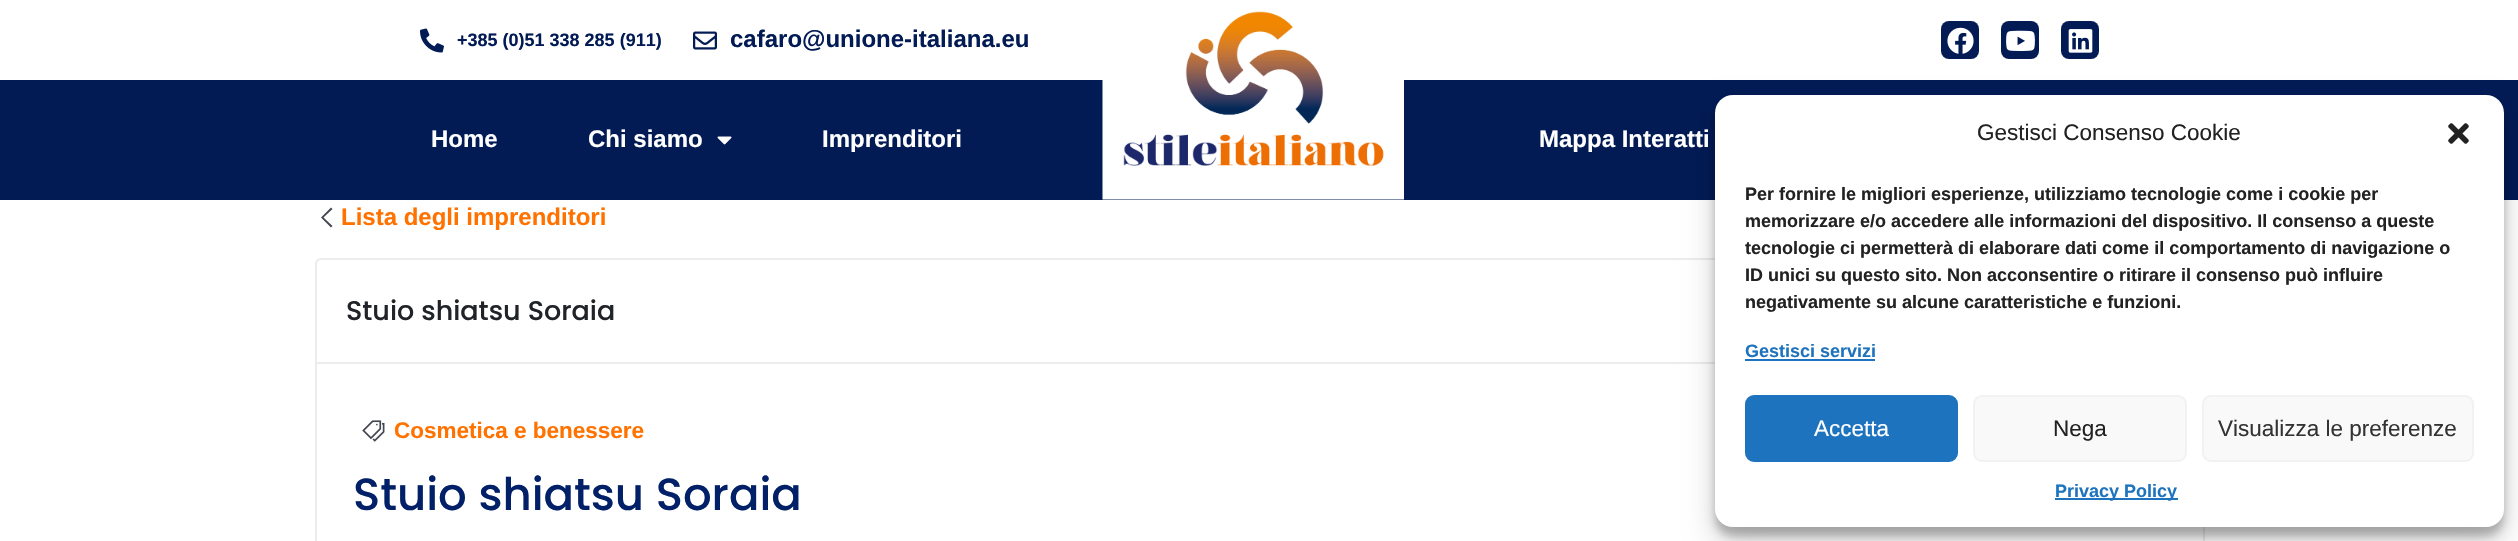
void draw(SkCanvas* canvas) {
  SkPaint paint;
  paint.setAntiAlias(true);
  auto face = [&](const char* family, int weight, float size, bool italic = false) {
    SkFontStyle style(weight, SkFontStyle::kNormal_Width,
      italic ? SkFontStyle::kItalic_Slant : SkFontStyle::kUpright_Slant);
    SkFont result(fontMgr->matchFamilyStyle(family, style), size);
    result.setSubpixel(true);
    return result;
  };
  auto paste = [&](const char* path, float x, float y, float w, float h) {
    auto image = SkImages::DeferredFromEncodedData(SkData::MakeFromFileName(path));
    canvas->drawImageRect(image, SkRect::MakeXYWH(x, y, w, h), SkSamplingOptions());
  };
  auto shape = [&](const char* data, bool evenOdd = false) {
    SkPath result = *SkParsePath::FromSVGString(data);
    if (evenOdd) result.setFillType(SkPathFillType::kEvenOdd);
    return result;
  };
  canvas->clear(0xffffffff);
  paste("img/1.png", 420, 28, 24, 25);
  paste("img/2.png", 693, 31, 24, 19);
  paint.setColor(0xff021b55);
  canvas->drawRect(SkRect::MakeXYWH(0, 80, 2518, 120), paint);
  paste("img/3.png", 1102, 11, 302, 189);
  canvas->drawRoundRect(SkRect::MakeXYWH(1941, 21, 38, 38), 8, 8, paint);
  paste("img/4.png", 1947, 27, 27, 27);
  canvas->drawRoundRect(SkRect::MakeXYWH(2001, 21, 38, 38), 8, 8, paint);
  paste("img/5.png", 2006, 30, 29, 21);
  canvas->drawRoundRect(SkRect::MakeXYWH(2061, 21, 38, 38), 8, 8, paint);
  paste("img/6.png", 2068, 29, 25, 24);
  paste("img/7.png", 717, 136, 15, 9);
  paint.setColor(0xff444752);
  canvas->drawPath(shape("M331 207.5L321 217.5L331 227.5L332.5 226L323.5 217.5L332.5 209Z"), paint);
  paint.setStroke(true);
  paint.setStrokeWidth(2);
  paint.setColor(0xffececec);
  canvas->drawRoundRect(SkRect::MakeXYWH(316, 259, 1888, 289), 5, 5, paint);
  paint.setStroke(false);
  canvas->drawRect(SkRect::MakeXYWH(317, 362, 1398, 2), paint);
  paste("img/8.png", 362, 420, 23, 22);
  paint.setColor(0x3b000000);
  paint.setMaskFilter(SkMaskFilter::MakeBlur(kNormal_SkBlurStyle, 4.5f));
  canvas->drawRoundRect(SkRect::MakeXYWH(1715, 104, 789, 432), 18, 18, paint);
  paint.setMaskFilter(nullptr);
  paint.setColor(0x30000000);
  paint.setMaskFilter(SkMaskFilter::MakeBlur(kNormal_SkBlurStyle, 15));
  canvas->drawRoundRect(SkRect::MakeXYWH(1715, 110, 789, 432), 18, 18, paint);
  paint.setMaskFilter(nullptr);
  paint.setColor(0xffffffff);
  canvas->drawRoundRect(SkRect::MakeXYWH(1715, 95, 789, 432), 18, 18, paint);
  paste("img/9.png", 2448, 123, 21, 21);
  paint.setColor(0xff1e73be);
  canvas->drawRect(SkRect::MakeXYWH(1745, 359, 130, 2), paint);
  canvas->drawRoundRect(SkRect::MakeXYWH(1746, 396, 211, 65), 8, 8, paint);
  paint.setStroke(true);
  canvas->drawRoundRect(SkRect::MakeXYWH(1746, 396, 211, 65), 8, 8, paint);
  paint.setStroke(false);
  paint.setColor(0xfff9f9f9);
  canvas->drawRoundRect(SkRect::MakeXYWH(1974, 396, 212, 65), 8, 8, paint);
  paint.setStroke(true);
  paint.setColor(0xfff2f2f2);
  canvas->drawRoundRect(SkRect::MakeXYWH(1974, 396, 212, 65), 8, 8, paint);
  paint.setStroke(false);
  paint.setColor(0xfff9f9f9);
  canvas->drawRoundRect(SkRect::MakeXYWH(2203, 396, 270, 65), 8, 8, paint);
  paint.setStroke(true);
  paint.setColor(0xfff2f2f2);
  canvas->drawRoundRect(SkRect::MakeXYWH(2203, 396, 270, 65), 8, 8, paint);
  paint.setStroke(false);
  paint.setColor(0xff1e73be);
  canvas->drawRect(SkRect::MakeXYWH(2055, 498, 123, 2), paint);
  auto f0 = face("Liberation Sans", 700, 18);
  paint.setColor(0xff021b55);
  canvas->drawString("+385 (0)51 338 285 (911)", 457, 46, f0, paint);
  auto f1 = face("Liberation Sans", 700, 24);
  canvas->drawString("cafaro@unione-italiana.eu", 730, 47, f1, paint);
  paint.setColor(0xffffffff);
  {
    const struct { const char* s; float x, y; } items[] = {
      {"Home", 431, 147},
      {"Chi siamo", 588, 147},
      {"Imprenditori", 822, 147},
      {"Mappa Interatti", 1539, 147},
    };
    for (auto [s, x, y] : items) {
      canvas->drawString(s, x, y, f1, paint);
    }
  }
  paint.setColor(0xffff7200);
  canvas->drawString("Lista degli imprenditori", 341, 225, f1, paint);
  auto f2 = face("Poppins", 500, 27);
  paint.setColor(0xff202428);
  canvas->drawString("Stuio shiatsu Soraia", 346, 320, f2, paint);
  auto f3 = face("Liberation Sans", 700, 22.5f);
  paint.setColor(0xffff7200);
  canvas->drawString("Cosmetica e benessere", 394, 438, f3, paint);
  auto f4 = face("Poppins", 500, 45);
  paint.setColor(0xff012068);
  canvas->drawString("Stuio shiatsu Soraia", 353, 510, f4, paint);
  auto f5 = face("Liberation Sans", 400, 22.5f);
  paint.setColor(0xff222222);
  canvas->drawString("Gestisci Consenso Cookie", 1977, 140, f5, paint);
  {
    const struct { const char* s; float x, y; } items[] = {
      {"Per fornire le migliori esperienze, utilizziamo tecnologie come i cookie per", 1745, 200},
      {"memorizzare e/o accedere alle informazioni del dispositivo. Il consenso a queste", 1745, 227},
      {"tecnologie ci permetterà di elaborare dati come il comportamento di navigazione o", 1745, 254},
      {"ID unici su questo sito. Non acconsentire o ritirare il consenso può influire", 1745, 281},
      {"negativamente su alcune caratteristiche e funzioni.", 1745, 308},
    };
    for (auto [s, x, y] : items) {
      canvas->drawString(s, x, y, f0, paint);
    }
  }
  paint.setColor(0xff1e73be);
  canvas->drawString("Gestisci servizi", 1745, 357, f0, paint);
  paint.setColor(0xffffffff);
  canvas->drawString("Accetta", 1814, 436, f5, paint);
  paint.setColor(0xff222222);
  canvas->drawString("Nega", 2053, 436, f5, paint);
  paint.setColor(0xff333333);
  canvas->drawString("Visualizza le preferenze", 2218, 436, f5, paint);
  paint.setColor(0xff1e73be);
  canvas->drawString("Privacy Policy", 2055, 497, f0, paint);
}
